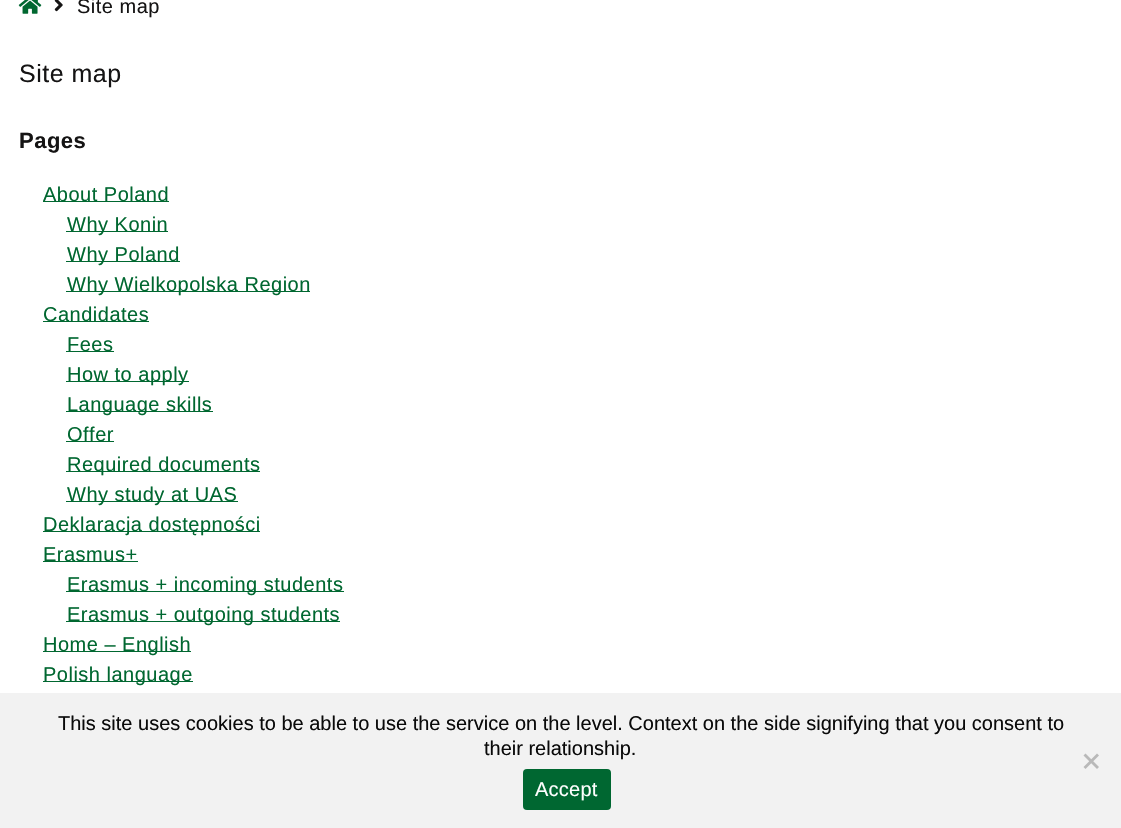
void draw(SkCanvas* canvas) {
  SkPaint paint;
  paint.setAntiAlias(true);
  auto face = [&](const char* family, int weight, float size, bool italic = false) {
    SkFontStyle style(weight, SkFontStyle::kNormal_Width,
      italic ? SkFontStyle::kItalic_Slant : SkFontStyle::kUpright_Slant);
    SkFont result(fontMgr->matchFamilyStyle(family, style), size);
    result.setSubpixel(true);
    return result;
  };
  auto writeSpaced = [&](const char* s, float x, float y, const SkFont& font, const SkPaint& ink, float letter, float word) {
    std::vector<SkGlyphID> glyphs(font.countText(s, strlen(s), SkTextEncoding::kUTF8));
    std::vector<float> xs(glyphs.size());
    font.textToGlyphs(s, strlen(s), SkTextEncoding::kUTF8, glyphs);
    font.getXPos(glyphs, xs, x);
    float extra = 0;
    for (size_t i = 0; i < glyphs.size(); i++) {
      xs[i] += extra;
      extra += letter + word * (glyphs[i] == font.unicharToGlyph(' '));
    }
    canvas->drawTextBlob(SkTextBlob::MakeFromPosHGlyphs(glyphs, xs, y, font), 0, 0, ink);
  };
  auto paste = [&](const char* path, float x, float y, float w, float h) {
    auto image = SkImages::DeferredFromEncodedData(SkData::MakeFromFileName(path));
    canvas->drawImageRect(image, SkRect::MakeXYWH(x, y, w, h), SkSamplingOptions());
  };
  auto shape = [&](const char* data, bool evenOdd = false) {
    SkPath result = *SkParsePath::FromSVGString(data);
    if (evenOdd) result.setFillType(SkPathFillType::kEvenOdd);
    return result;
  };
  canvas->clear(0xffffffff);
  paste("img/1.png", 18, 0, 24, 14);
  paste("img/2.png", 54, 0, 9, 12);
  {
    const struct { float x, y, w, h; SkColor color; } items[] = {
      {43, 201, 126, 1, 0xff006730},
      {66, 231, 102, 1, 0xff006730},
      {66, 261, 114, 1, 0xff006730},
      {66, 291, 244, 1, 0xff006730},
      {43, 321, 106, 1, 0xff006730},
      {66, 351, 48, 1, 0xff006730},
      {66, 381, 123, 1, 0xff006730},
      {66, 411, 147, 1, 0xff006730},
      {66, 441, 48, 1, 0xff006730},
      {66, 471, 194, 1, 0xff006730},
      {66, 501, 172, 1, 0xff006730},
      {43, 531, 217, 1, 0xff006730},
      {43, 561, 95, 1, 0xff006730},
      {66, 591, 278, 1, 0xff006730},
      {66, 621, 274, 1, 0xff006730},
      {43, 651, 148, 1, 0xff006730},
      {43, 681, 150, 1, 0xff006730},
      {0, 693, 1121, 135, 0xfff2f2f2},
    };
    for (auto [x, y, w, h, color] : items) {
      paint.setColor(color);
      canvas->drawRect(SkRect::MakeXYWH(x, y, w, h), paint);
    }
  }
  paint.setColor(0xffb9b9b9);
  canvas->drawPath(shape("M1097 753.5L1099 755.5L1085.5 769L1083.5 767Z"), paint);
  canvas->drawPath(shape("M1083.5 755.5L1085.5 753.5L1099 767L1097 769Z"), paint);
  paint.setColor(0xff006731);
  canvas->drawRoundRect(SkRect::MakeXYWH(523, 769, 88, 41), 4, 4, paint);
  auto f0 = face("Liberation Sans", 400, 20);
  paint.setColor(0xff151414);
  writeSpaced("Site map", 77, 13, f0, paint, 0.5f, 0);
  auto f1 = face("Liberation Sans", 400, 25);
  writeSpaced("Site map", 19, 82, f1, paint, 0.5f, 0);
  auto f2 = face("Liberation Sans", 700, 22);
  writeSpaced("Pages", 19, 148, f2, paint, 0.5f, 0);
  paint.setColor(0xff006730);
  {
    const struct { const char* s; float x, y; } items[] = {
      {"About Poland", 43, 201},
      {"Why Konin", 67, 231},
      {"Why Poland", 67, 261},
      {"Why Wielkopolska Region", 67, 291},
      {"Candidates", 43, 321},
      {"Fees", 67, 351},
      {"How to apply", 67, 381},
      {"Language skills", 67, 411},
      {"Offer", 67, 441},
      {"Required documents", 67, 471},
      {"Why study at UAS", 67, 501},
      {"Deklaracja dostępności", 43, 531},
      {"Erasmus+", 43, 561},
      {"Erasmus + incoming students", 67, 591},
      {"Erasmus + outgoing students", 67, 621},
      {"Home – English", 43, 651},
      {"Polish language", 43, 681},
    };
    for (auto [s, x, y] : items) {
      writeSpaced(s, x, y, f0, paint, 0.5f, 0);
    }
  }
  paint.setColor(0xff0a0a0a);
  canvas->drawString("This site uses cookies to be able to use the service on the level. Context on the side signifying that you consent to", 58, 730, f0, paint);
  canvas->drawString("their relationship.", 484, 755, f0, paint);
  paint.setColor(0xffffffff);
  writeSpaced("Accept", 535, 796, f0, paint, 0.25f, 0);
}
